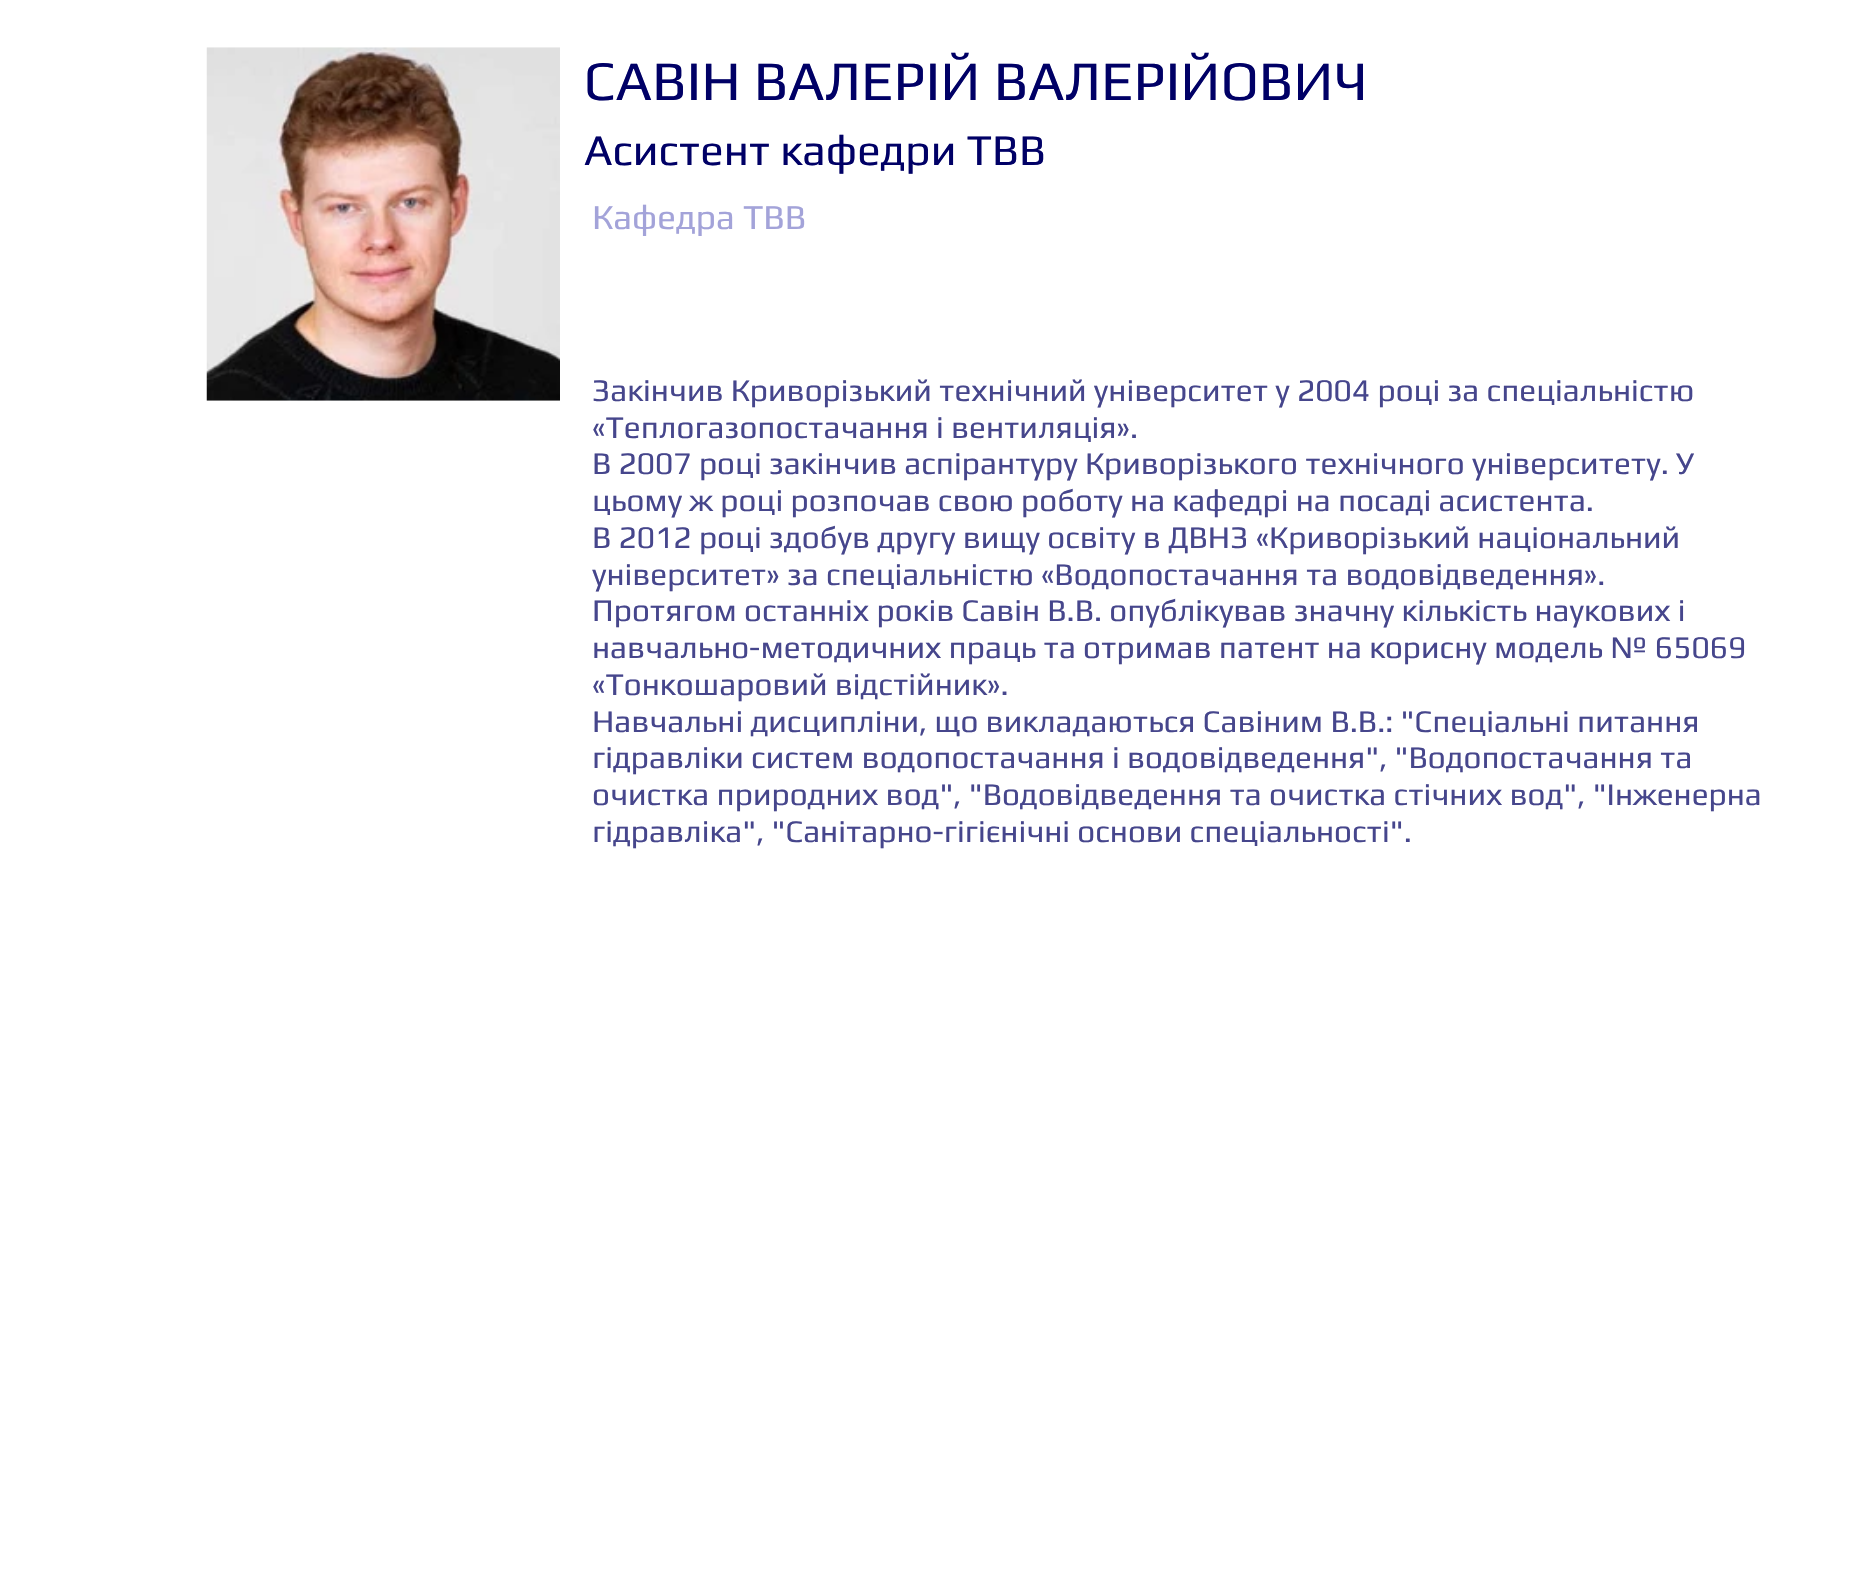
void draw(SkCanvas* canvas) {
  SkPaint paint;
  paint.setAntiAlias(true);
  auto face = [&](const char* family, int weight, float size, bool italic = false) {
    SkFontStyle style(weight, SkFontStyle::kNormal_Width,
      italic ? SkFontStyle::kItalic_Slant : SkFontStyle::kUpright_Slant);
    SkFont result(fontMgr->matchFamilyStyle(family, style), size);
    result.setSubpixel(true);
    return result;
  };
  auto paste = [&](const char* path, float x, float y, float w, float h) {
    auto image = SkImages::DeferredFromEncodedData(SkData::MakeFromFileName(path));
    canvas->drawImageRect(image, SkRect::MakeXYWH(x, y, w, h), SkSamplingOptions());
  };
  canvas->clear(0xffffffff);
  paste("img/1.png", 206, 47, 354, 354);
  auto f0 = face("Play", 400, 56);
  paint.setColor(0xff000066);
  canvas->drawString("САВІН ВАЛЕРІЙ ВАЛЕРІЙОВИЧ", 584, 100, f0, paint);
  auto f1 = face("Play", 400, 43.75f);
  canvas->drawString("Асистент кафедри ТВВ", 584, 165, f1, paint);
  auto f2 = face("Play", 400, 35);
  paint.setColor(0xffa3a3d9);
  canvas->drawString("Кафедра ТВВ", 592, 229, f2, paint);
  auto f3 = face("Play", 400, 31.5f);
  paint.setColor(0xff46468c);
  {
    const struct { const char* s; float x, y; } items[] = {
      {"Закінчив Криворізький технічний університет у 2004 році за спеціальністю", 592, 401},
      {"«Теплогазопостачання і вентиляція».", 592, 438},
      {"В 2007 році закінчив аспірантуру Криворізького технічного університету. У", 592, 474},
      {"цьому ж році розпочав свою роботу на кафедрі на посаді асистента.", 592, 511},
      {"В 2012 році здобув другу вищу освіту в ДВНЗ «Криворізький національний", 592, 548},
      {"університет» за спеціальністю «Водопостачання та водовідведення».", 592, 585},
      {"Протягом останніх років Савін В.В. опублікував значну кількість наукових і", 592, 621},
      {"навчально-методичних праць та отримав патент на корисну модель № 65069", 592, 658},
      {"«Тонкошаровий відстійник».", 592, 695},
      {"Навчальні дисципліни, що викладаються Савіним В.В.: \"Спеціальні питання", 592, 732},
      {"гідравліки систем водопостачання і водовідведення\", \"Водопостачання та", 592, 768},
      {"очистка природних вод\", \"Водовідведення та очистка стічних вод\", \"Інженерна", 592, 805},
      {"гідравліка\", \"Санітарно-гігієнічні основи спеціальності\".", 592, 842},
    };
    for (auto [s, x, y] : items) {
      canvas->drawString(s, x, y, f3, paint);
    }
  }
}
